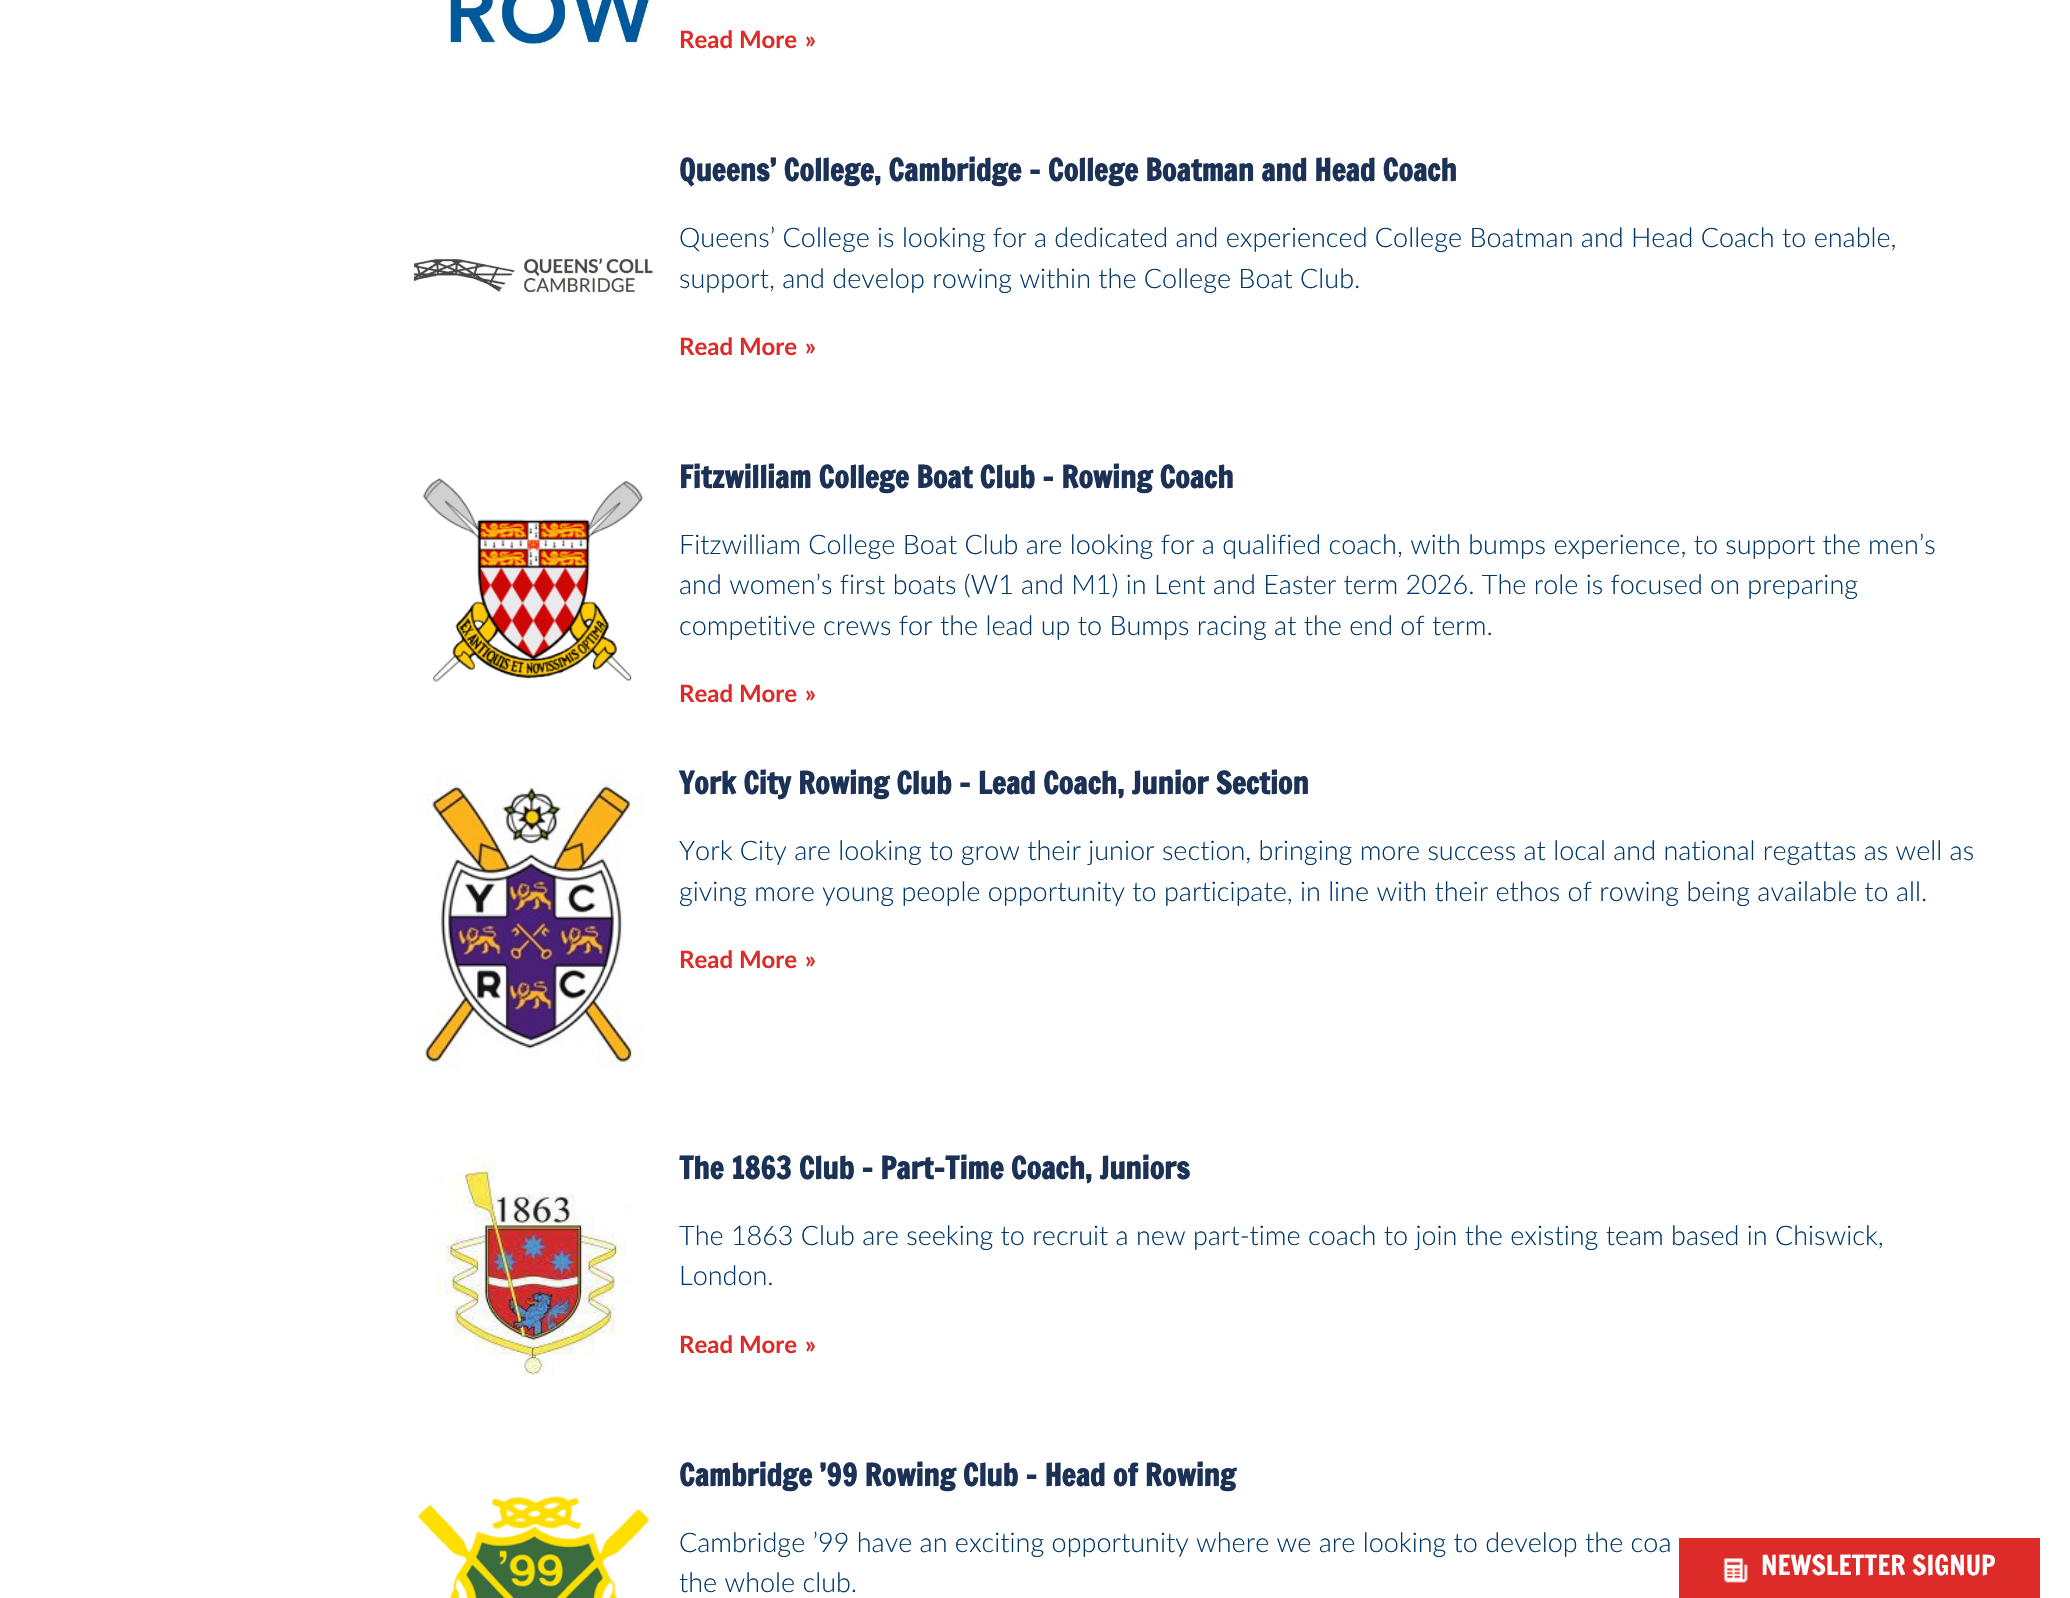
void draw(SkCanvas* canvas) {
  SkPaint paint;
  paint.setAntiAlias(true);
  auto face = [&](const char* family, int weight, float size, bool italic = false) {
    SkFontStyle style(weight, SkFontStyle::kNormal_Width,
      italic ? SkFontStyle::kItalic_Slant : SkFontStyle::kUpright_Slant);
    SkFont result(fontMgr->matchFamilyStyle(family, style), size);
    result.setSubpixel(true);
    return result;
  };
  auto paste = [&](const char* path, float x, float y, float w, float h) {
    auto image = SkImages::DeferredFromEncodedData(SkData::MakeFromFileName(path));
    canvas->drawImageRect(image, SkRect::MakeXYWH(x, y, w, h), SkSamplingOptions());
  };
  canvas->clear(0xffffffff);
  paste("img/1.png", 446, 0, 206, 46);
  paste("img/2.png", 414, 258, 239, 35);
  paste("img/3.png", 423, 478, 220, 204);
  paste("img/4.png", 414, 769, 230, 300);
  paste("img/5.png", 433, 1157, 202, 219);
  paste("img/6.png", 417, 1494, 233, 104);
  paint.setColor(0xffdc2b28);
  canvas->drawRect(SkRect::MakeXYWH(1679, 1538, 361, 60), paint);
  paste("img/7.png", 1723, 1558, 25, 25);
  auto f0 = face("Lato", 700, 24);
  canvas->drawString("Read More", 679, 48, f0, paint);
  canvas->drawString("»", 805, 48, f0, paint);
  auto f1 = face("Francois One", 700, 30);
  paint.setColor(0xff1b3156);
  canvas->drawString("Queens’ College, Cambridge – College Boatman and Head Coach", 679, 181, f1, paint);
  auto f2 = face("Lato", 300, 27);
  paint.setColor(0xff00386b);
  canvas->drawString("Queens’ College is looking for a dedicated and experienced College Boatman and Head Coach to enable,", 679, 247, f2, paint);
  canvas->drawString("support, and develop rowing within the College Boat Club.", 679, 288, f2, paint);
  paint.setColor(0xffdc2b28);
  canvas->drawString("Read More", 679, 355, f0, paint);
  canvas->drawString("»", 805, 355, f0, paint);
  paint.setColor(0xff1b3156);
  canvas->drawString("Fitzwilliam College Boat Club – Rowing Coach", 679, 488, f1, paint);
  paint.setColor(0xff00386b);
  {
    const struct { const char* s; float x, y; } items[] = {
      {"Fitzwilliam College Boat Club are looking for a qualified coach, with bumps experience, to support the men’s", 679, 554},
      {"and women’s first boats (W1 and M1) in Lent and Easter term 2026. The role is focused on preparing", 679, 594},
      {"competitive crews for the lead up to Bumps racing at the end of term.", 679, 635},
    };
    for (auto [s, x, y] : items) {
      canvas->drawString(s, x, y, f2, paint);
    }
  }
  paint.setColor(0xffdc2b28);
  canvas->drawString("Read More", 679, 702, f0, paint);
  canvas->drawString("»", 805, 702, f0, paint);
  paint.setColor(0xff1b3156);
  canvas->drawString("York City Rowing Club – Lead Coach, Junior Section", 679, 794, f1, paint);
  paint.setColor(0xff00386b);
  canvas->drawString("York City are looking to grow their junior section, bringing more success at local and national regattas as well as", 679, 860, f2, paint);
  canvas->drawString("giving more young people opportunity to participate, in line with their ethos of rowing being available to all.", 679, 901, f2, paint);
  paint.setColor(0xffdc2b28);
  canvas->drawString("Read More", 679, 968, f0, paint);
  canvas->drawString("»", 805, 968, f0, paint);
  paint.setColor(0xff1b3156);
  canvas->drawString("The 1863 Club – Part-Time Coach, Juniors", 679, 1179, f1, paint);
  paint.setColor(0xff00386b);
  canvas->drawString("The 1863 Club are seeking to recruit a new part-time coach to join the existing team based in Chiswick,", 679, 1245, f2, paint);
  canvas->drawString("London.", 679, 1285, f2, paint);
  paint.setColor(0xffdc2b28);
  canvas->drawString("Read More", 679, 1353, f0, paint);
  canvas->drawString("»", 805, 1353, f0, paint);
  paint.setColor(0xff1b3156);
  canvas->drawString("Cambridge ’99 Rowing Club – Head of Rowing", 679, 1486, f1, paint);
  paint.setColor(0xff00386b);
  canvas->drawString("Cambridge ’99 have an exciting opportunity where we are looking to develop the coa", 679, 1552, f2, paint);
  canvas->drawString("the whole club.", 679, 1592, f2, paint);
  auto f3 = face("Francois One", 400, 27);
  paint.setColor(0xffffffff);
  canvas->drawString("NEWSLETTER SIGNUP", 1761, 1575, f3, paint);
}
